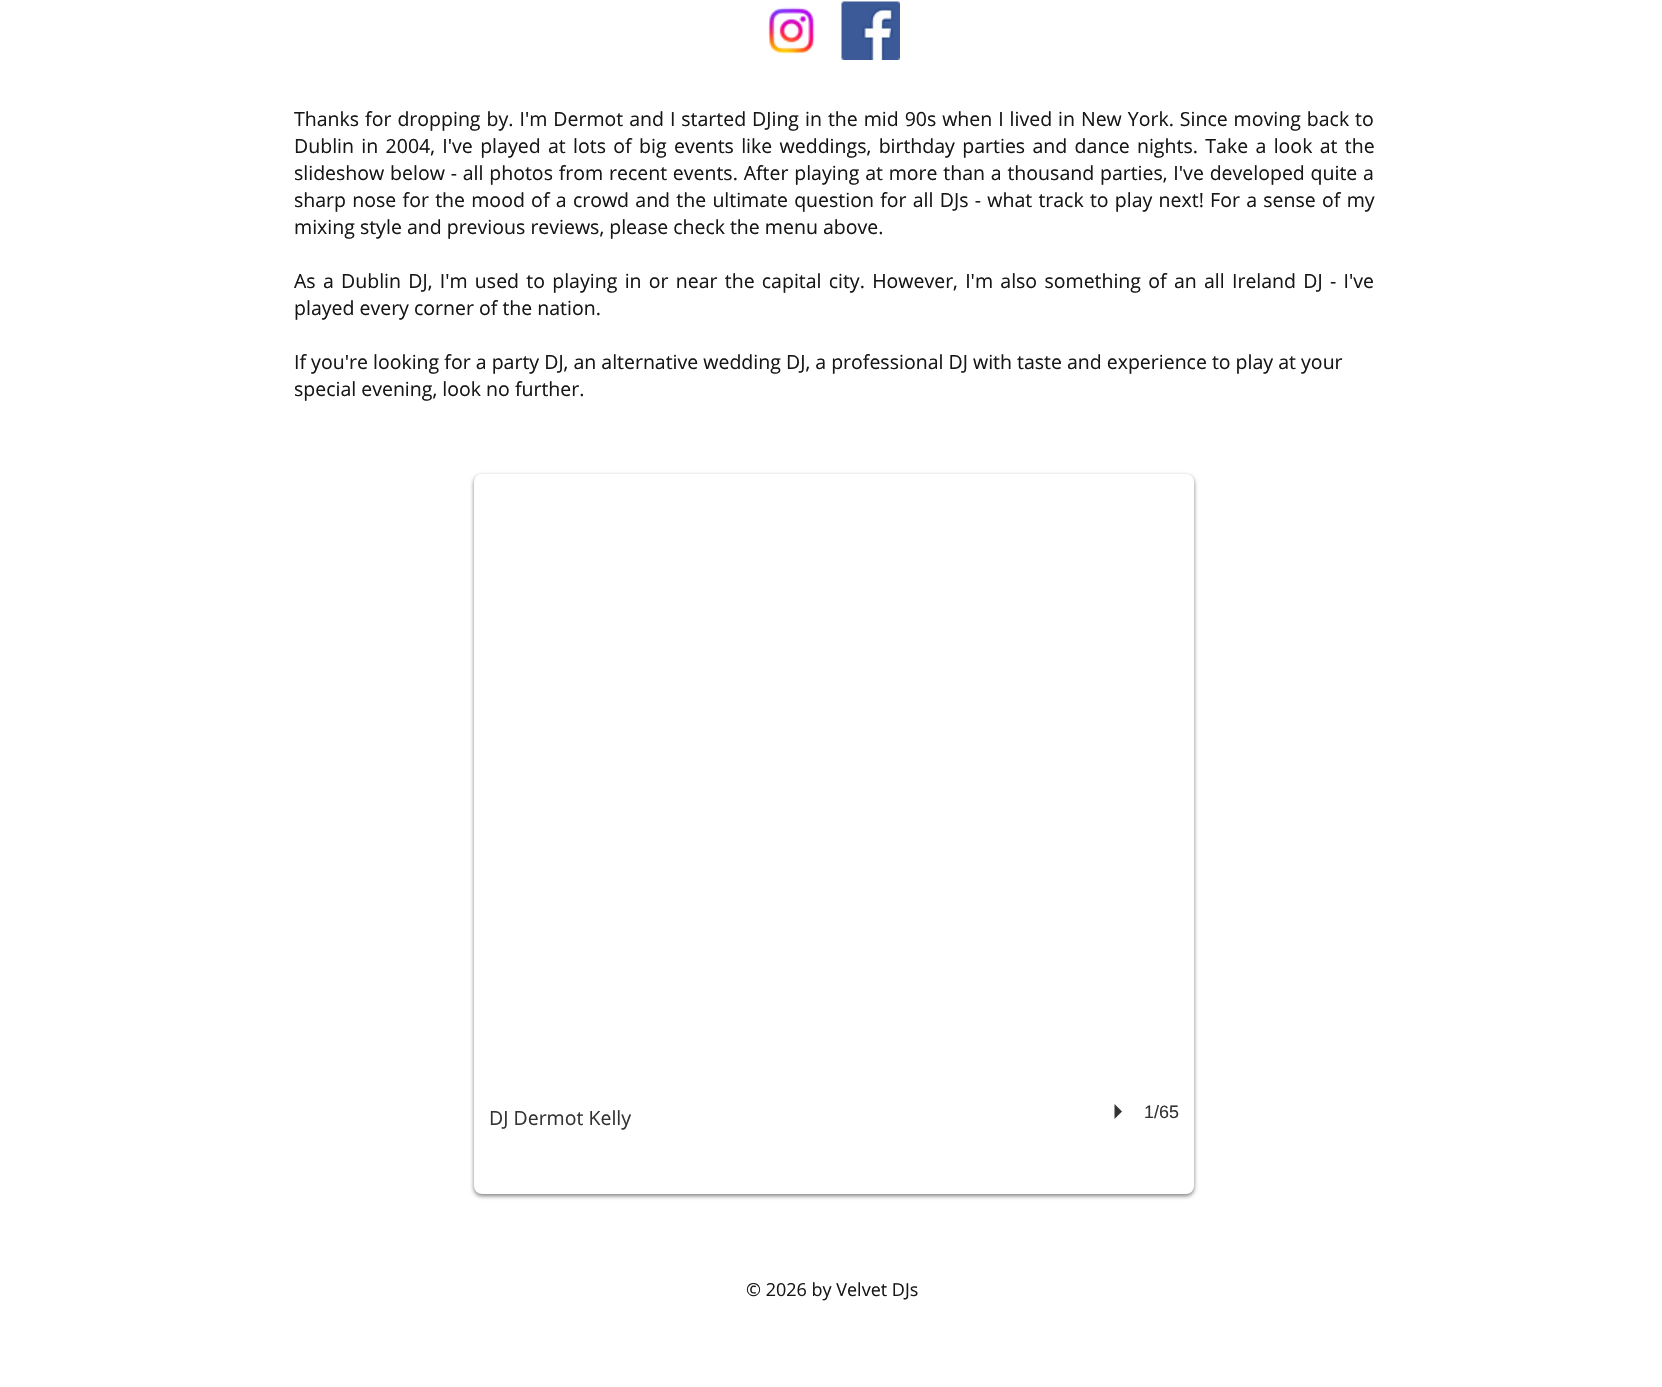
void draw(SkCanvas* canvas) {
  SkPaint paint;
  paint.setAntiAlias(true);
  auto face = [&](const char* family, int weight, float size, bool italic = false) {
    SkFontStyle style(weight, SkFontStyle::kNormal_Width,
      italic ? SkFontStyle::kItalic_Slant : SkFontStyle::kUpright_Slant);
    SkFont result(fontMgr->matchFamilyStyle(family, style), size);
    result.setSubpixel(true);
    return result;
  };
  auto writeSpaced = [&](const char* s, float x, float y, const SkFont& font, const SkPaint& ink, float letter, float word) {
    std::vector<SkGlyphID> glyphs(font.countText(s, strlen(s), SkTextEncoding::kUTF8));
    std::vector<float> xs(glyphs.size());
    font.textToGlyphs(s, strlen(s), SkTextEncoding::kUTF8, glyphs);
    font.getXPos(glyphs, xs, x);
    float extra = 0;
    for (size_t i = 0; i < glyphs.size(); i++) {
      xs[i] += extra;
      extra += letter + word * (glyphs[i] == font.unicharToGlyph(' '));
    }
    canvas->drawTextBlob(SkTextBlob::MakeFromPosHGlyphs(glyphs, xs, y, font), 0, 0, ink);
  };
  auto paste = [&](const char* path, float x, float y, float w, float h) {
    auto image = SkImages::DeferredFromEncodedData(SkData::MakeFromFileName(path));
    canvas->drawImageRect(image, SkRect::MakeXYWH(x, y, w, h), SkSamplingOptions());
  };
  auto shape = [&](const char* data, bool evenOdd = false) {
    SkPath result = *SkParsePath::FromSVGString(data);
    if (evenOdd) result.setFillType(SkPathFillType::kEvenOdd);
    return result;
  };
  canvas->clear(0xffffffff);
  paste("img/1.png", 768, 7, 47, 47);
  paste("img/2.png", 841, 1, 59, 59);
  paint.setColor(0x80000000);
  paint.setMaskFilter(SkMaskFilter::MakeBlur(kNormal_SkBlurStyle, 2));
  canvas->drawRoundRect(SkRect::MakeXYWH(474, 476, 720, 720), 8, 8, paint);
  paint.setMaskFilter(nullptr);
  paint.setColor(0xffffffff);
  canvas->drawRoundRect(SkRect::MakeXYWH(474, 474, 720, 720), 8, 8, paint);
  paint.setColor(0xff333333);
  canvas->drawPath(shape("M1114.5 1119V1104L1122 1111.5Z"), paint);
  auto f0 = face("Open Sans", 400, 19.5f);
  paint.setColor(0xff181717);
  writeSpaced("Thanks for dropping by. I'm Dermot and I started DJing in the mid 90s when I lived in New York. Since moving back to", 294, 126, f0, paint, 0, 0.9f);
  writeSpaced("Dublin in 2004, I've played at lots of big events like weddings, birthday parties and dance nights. Take a look at the", 294, 153, f0, paint, 0, 2.3f);
  writeSpaced("slideshow below - all photos from recent events. After playing at more than a thousand parties, I've developed quite a", 294, 180, f0, paint, 0, 0.75f);
  writeSpaced("sharp nose for the mood of a crowd and the ultimate question for all DJs - what track to play next! For a sense of my", 294, 207, f0, paint, 0, 1.2f);
  canvas->drawString("mixing style and previous reviews, please check the menu above.", 294, 234, f0, paint);
  writeSpaced("As a Dublin DJ, I'm used to playing in or near the capital city. However, I'm also something of an all Ireland DJ - I've", 294, 288, f0, paint, 0, 2.2f);
  {
    const struct { const char* s; float x, y; } items[] = {
      {"played every corner of the nation.", 294, 315},
      {"If you're looking for a party DJ, an alternative wedding DJ, a professional DJ with taste and experience to play at your", 294, 369},
      {"special evening, look no further.", 294, 396},
    };
    for (auto [s, x, y] : items) {
      canvas->drawString(s, x, y, f0, paint);
    }
  }
  paint.setColor(0xff333333);
  canvas->drawString("DJ Dermot Kelly", 489, 1125, f0, paint);
  auto f1 = face("Liberation Sans", 400, 18);
  canvas->drawString("1/65", 1144, 1118, f1, paint);
  auto f2 = face("Open Sans", 400, 18);
  paint.setColor(0xff181717);
  canvas->drawString("© 2026 by Velvet DJs", 746, 1296, f2, paint);
}
